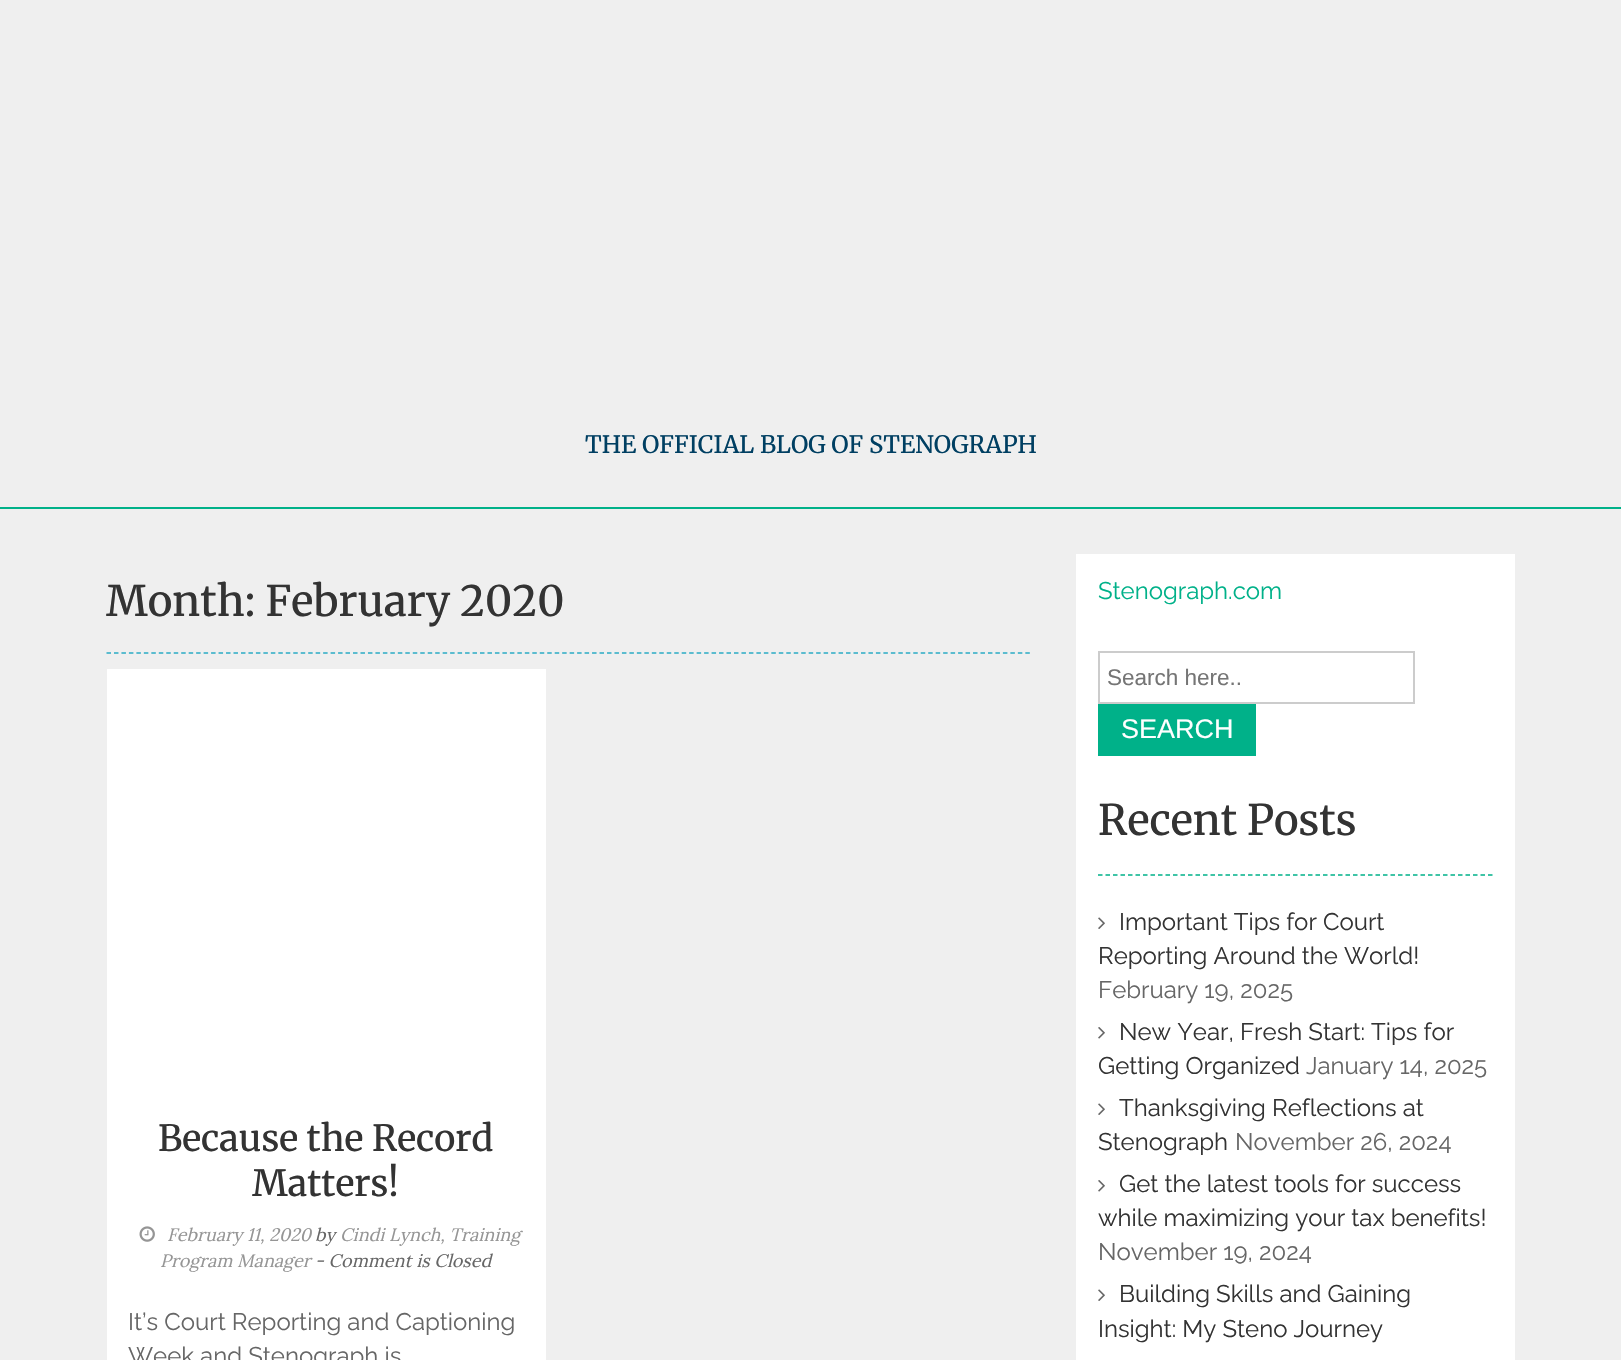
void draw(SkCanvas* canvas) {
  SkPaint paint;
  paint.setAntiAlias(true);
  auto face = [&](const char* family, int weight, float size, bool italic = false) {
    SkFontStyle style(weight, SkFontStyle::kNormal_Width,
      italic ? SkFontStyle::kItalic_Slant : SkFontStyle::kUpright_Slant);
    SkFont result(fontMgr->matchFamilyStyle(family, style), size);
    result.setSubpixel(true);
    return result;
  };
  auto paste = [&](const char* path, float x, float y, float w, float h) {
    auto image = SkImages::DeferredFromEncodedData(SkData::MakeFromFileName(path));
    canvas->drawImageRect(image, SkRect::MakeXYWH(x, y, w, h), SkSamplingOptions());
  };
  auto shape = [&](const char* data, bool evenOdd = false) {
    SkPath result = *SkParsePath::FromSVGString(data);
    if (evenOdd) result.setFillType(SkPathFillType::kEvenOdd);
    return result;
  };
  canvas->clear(0xffefefef);
  paint.setColor(0xff00b189);
  canvas->drawRect(SkRect::MakeXYWH(0, 507, 1621, 2), paint);
  paint.setStroke(true);
  paint.setStrokeWidth(1.5f);
  paint.setColor(0xff2aabc5);
  paint.setPathEffect(SkDashPathEffect::Make({{4.5f, 2.97f}}, 0));
  canvas->drawPath(shape("M106.5 653H1030.5"), paint);
  paint.setPathEffect(nullptr);
  paint.setStroke(false);
  paint.setColor(0xffffffff);
  canvas->drawRect(SkRect::MakeXYWH(107, 669, 439, 691), paint);
  paste("img/1.png", 139, 1226, 16, 16);
  canvas->drawRect(SkRect::MakeXYWH(1076, 554, 439, 806), paint);
  paint.setStroke(true);
  paint.setStrokeWidth(2);
  paint.setColor(0xffcccccc);
  canvas->drawRect(SkRect::MakeXYWH(1099, 652, 315, 51), paint);
  paint.setStroke(false);
  paint.setColor(0xff00b189);
  canvas->drawRect(SkRect::MakeXYWH(1098, 704, 158, 52), paint);
  paint.setStroke(true);
  paint.setStrokeWidth(1.5f);
  paint.setPathEffect(SkDashPathEffect::Make({{4.5f, 3}}, 0));
  canvas->drawPath(shape("M1098 875H1492.5"), paint);
  paint.setPathEffect(nullptr);
  paste("img/2.png", 1098, 917, 7, 12);
  paste("img/3.png", 1098, 1027, 7, 12);
  paste("img/2.png", 1098, 1103, 7, 12);
  paste("img/3.png", 1098, 1180, 7, 12);
  paste("img/2.png", 1098, 1289, 7, 12);
  auto f0 = face("Merriweather", 400, 24);
  paint.setStroke(false);
  paint.setColor(0xff003f62);
  canvas->drawString("THE OFFICIAL BLOG OF STENOGRAPH", 585, 453, f0, paint);
  auto f1 = face("Merriweather", 500, 42);
  paint.setColor(0xff333333);
  canvas->drawString("Month: February 2020", 106, 616, f1, paint);
  auto f2 = face("Merriweather", 500, 36);
  canvas->drawString("Because the Record", 158, 1151, f2, paint);
  canvas->drawString("Matters!", 252, 1196, f2, paint);
  auto f3 = face("Lora", 400, 18, true);
  paint.setColor(0xff959595);
  canvas->drawString("February 11, 2020", 167, 1241, f3, paint);
  paint.setColor(0xff666666);
  canvas->drawString("by", 315, 1241, f3, paint);
  paint.setColor(0xff959595);
  canvas->drawString("Cindi Lynch, Training", 340, 1241, f3, paint);
  canvas->drawString("Program Manager", 160, 1267, f3, paint);
  paint.setColor(0xff666666);
  canvas->drawString("- Comment is Closed", 315, 1267, f3, paint);
  auto f4 = face("Raleway", 400, 24);
  canvas->drawString("It’s Court Reporting and Captioning", 128, 1330, f4, paint);
  canvas->drawString("Week and Stenograph is", 128, 1364, f4, paint);
  paint.setColor(0xff00b189);
  canvas->drawString("Stenograph.com", 1098, 599, f4, paint);
  auto f5 = face("Liberation Sans", 400, 22.5f);
  paint.setColor(0xff757575);
  canvas->drawString("Search here..", 1107, 685, f5, paint);
  auto f6 = face("Liberation Sans", 400, 27);
  paint.setColor(0xffffffff);
  canvas->drawString("SEARCH", 1121, 738, f6, paint);
  paint.setColor(0xff333333);
  canvas->drawString("Recent Posts", 1098, 835, f1, paint);
  canvas->drawString("Important Tips for Court", 1119, 930, f4, paint);
  canvas->drawString("Reporting Around the World!", 1098, 964, f4, paint);
  paint.setColor(0xff666666);
  canvas->drawString("February 19, 2025", 1098, 998, f4, paint);
  paint.setColor(0xff333333);
  canvas->drawString("New Year, Fresh Start: Tips for", 1119, 1040, f4, paint);
  canvas->drawString("Getting Organized", 1098, 1074, f4, paint);
  paint.setColor(0xff666666);
  canvas->drawString("January 14, 2025", 1306, 1074, f4, paint);
  paint.setColor(0xff333333);
  canvas->drawString("Thanksgiving Reflections at", 1119, 1116, f4, paint);
  canvas->drawString("Stenograph", 1098, 1150, f4, paint);
  paint.setColor(0xff666666);
  canvas->drawString("November 26, 2024", 1235, 1150, f4, paint);
  paint.setColor(0xff333333);
  canvas->drawString("Get the latest tools for success", 1119, 1192, f4, paint);
  canvas->drawString("while maximizing your tax benefits!", 1098, 1226, f4, paint);
  paint.setColor(0xff666666);
  canvas->drawString("November 19, 2024", 1098, 1260, f4, paint);
  paint.setColor(0xff333333);
  canvas->drawString("Building Skills and Gaining", 1119, 1302, f4, paint);
  canvas->drawString("Insight: My Steno Journey", 1098, 1337, f4, paint);
}
